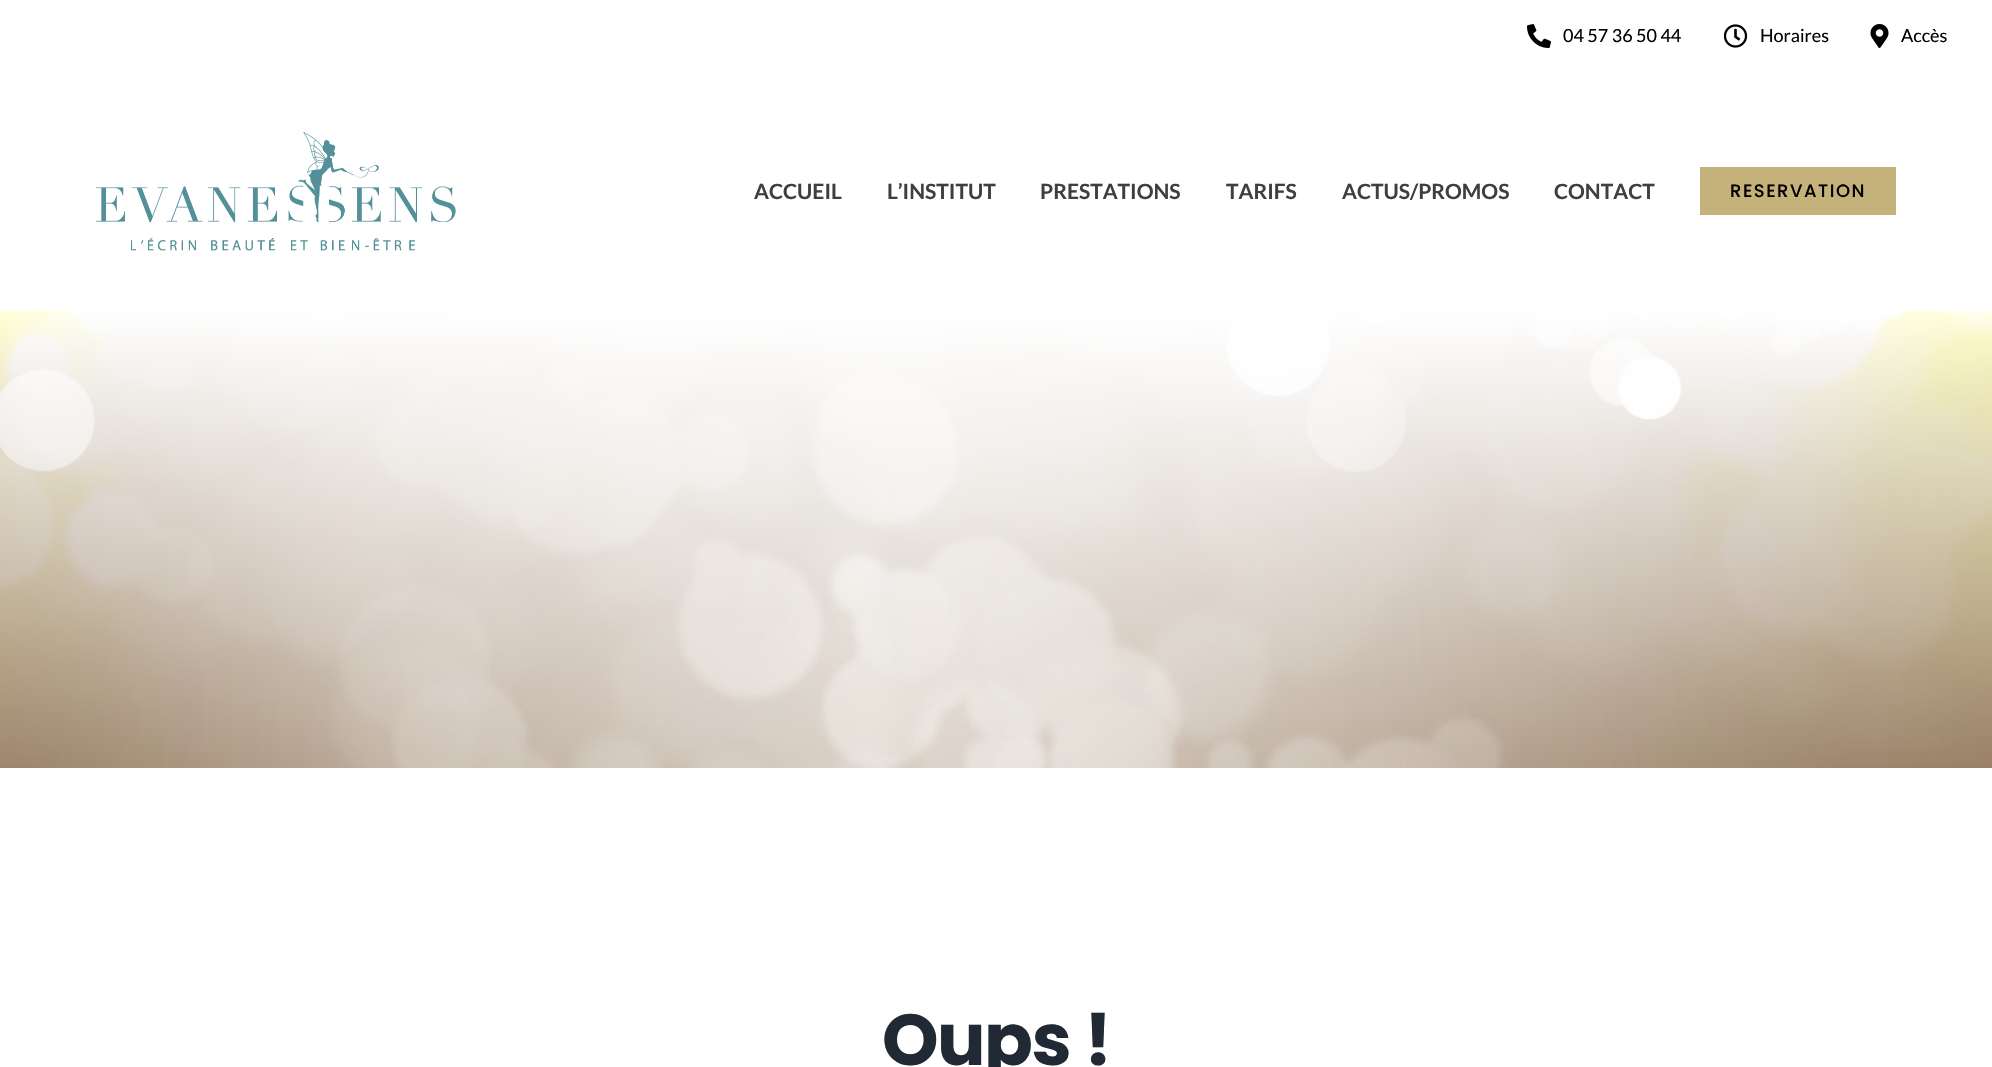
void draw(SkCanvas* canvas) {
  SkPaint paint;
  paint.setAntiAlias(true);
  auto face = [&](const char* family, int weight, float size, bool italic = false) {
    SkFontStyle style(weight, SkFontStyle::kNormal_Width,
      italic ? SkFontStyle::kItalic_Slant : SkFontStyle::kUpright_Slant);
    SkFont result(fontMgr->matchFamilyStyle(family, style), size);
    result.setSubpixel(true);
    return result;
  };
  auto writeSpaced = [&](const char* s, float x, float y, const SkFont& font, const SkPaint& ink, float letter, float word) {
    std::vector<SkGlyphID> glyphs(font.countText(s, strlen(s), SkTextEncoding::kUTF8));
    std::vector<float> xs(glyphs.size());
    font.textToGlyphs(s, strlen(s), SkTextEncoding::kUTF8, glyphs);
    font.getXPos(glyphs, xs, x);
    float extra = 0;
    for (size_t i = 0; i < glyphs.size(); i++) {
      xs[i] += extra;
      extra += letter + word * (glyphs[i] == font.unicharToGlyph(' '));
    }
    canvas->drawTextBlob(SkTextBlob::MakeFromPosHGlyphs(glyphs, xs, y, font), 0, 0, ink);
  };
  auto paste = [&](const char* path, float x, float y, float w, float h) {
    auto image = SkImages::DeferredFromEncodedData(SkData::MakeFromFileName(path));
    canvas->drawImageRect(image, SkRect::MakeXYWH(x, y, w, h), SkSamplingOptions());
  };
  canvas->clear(0xffffffff);
  paste("img/1.png", 1527, 24, 24, 24);
  paste("img/2.png", 1723, 24, 25, 24);
  paste("img/3.png", 1870, 24, 19, 24);
  paste("img/4.png", 96, 132, 360, 119);
  paint.setColor(0xffc5b17a);
  canvas->drawRect(SkRect::MakeXYWH(1700, 167, 196, 48), paint);
  paste("img/5.png", 0, 311, 1992, 457);
  auto f0 = face("Lato", 400, 18);
  paint.setColor(0xff000000);
  {
    const struct { const char* s; float x, y; } items[] = {
      {"04 57 36 50 44", 1563, 42},
      {"Horaires", 1760, 42},
      {"Accès", 1901, 42},
    };
    for (auto [s, x, y] : items) {
      canvas->drawString(s, x, y, f0, paint);
    }
  }
  auto f1 = face("Lato", 700, 21);
  paint.setColor(0xff3f3f3f);
  {
    const struct { const char* s; float x, y; } items[] = {
      {"ACCUEIL", 754, 199},
      {"L’INSTITUT", 887, 199},
      {"PRESTATIONS", 1040, 199},
      {"TARIFS", 1226, 199},
      {"ACTUS/PROMOS", 1342, 199},
      {"CONTACT", 1554, 199},
    };
    for (auto [s, x, y] : items) {
      canvas->drawString(s, x, y, f1, paint);
    }
  }
  auto f2 = face("Poppins", 500, 18);
  paint.setColor(0xff000000);
  writeSpaced("RESERVATION", 1730, 197, f2, paint, 1.5f, 0);
  auto f3 = face("Poppins", 700, 72);
  paint.setColor(0xff212934);
  writeSpaced("Oups !", 882, 1065, f3, paint, -1.5f, 0);
}
